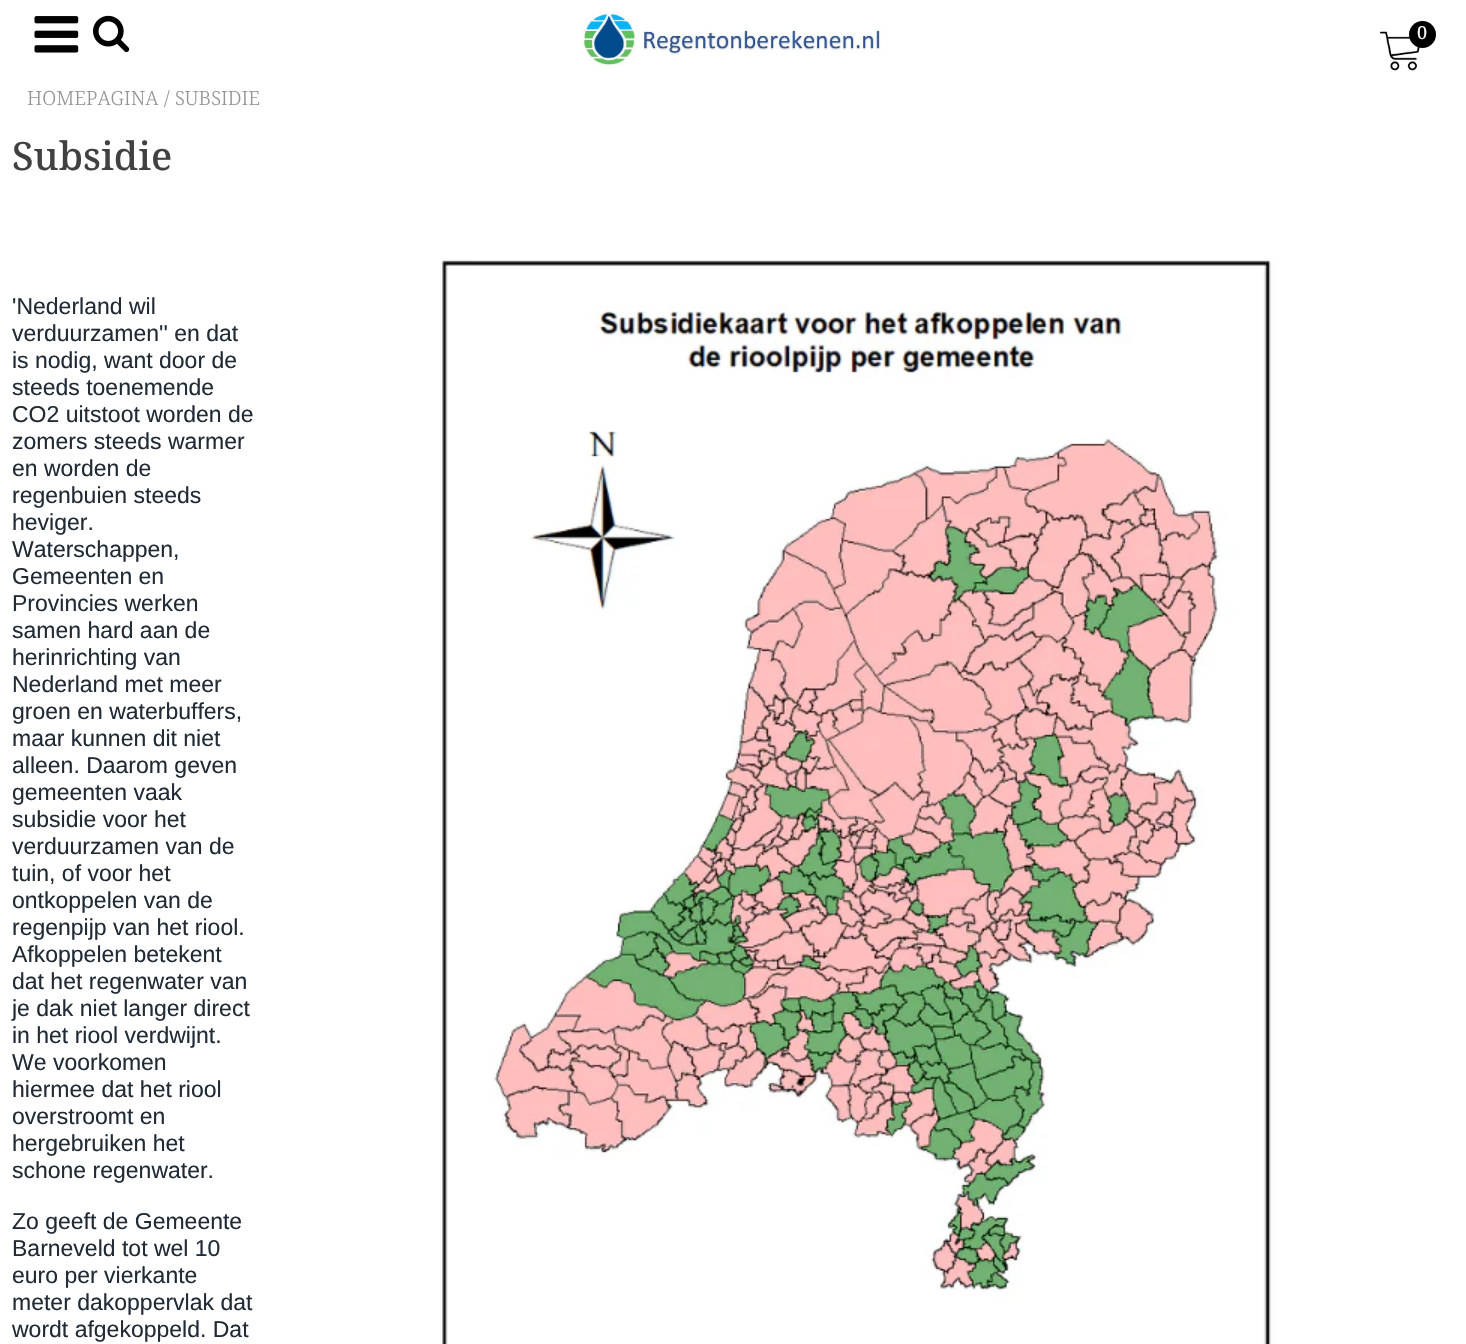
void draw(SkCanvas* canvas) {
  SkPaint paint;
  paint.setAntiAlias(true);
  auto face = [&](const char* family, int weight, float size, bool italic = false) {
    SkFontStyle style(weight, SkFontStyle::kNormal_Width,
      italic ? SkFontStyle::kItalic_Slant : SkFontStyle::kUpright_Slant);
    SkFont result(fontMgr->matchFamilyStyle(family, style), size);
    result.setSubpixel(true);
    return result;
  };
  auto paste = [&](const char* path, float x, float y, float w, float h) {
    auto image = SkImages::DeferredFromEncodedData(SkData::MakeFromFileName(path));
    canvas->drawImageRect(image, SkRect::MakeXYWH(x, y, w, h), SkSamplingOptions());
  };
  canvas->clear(0xffffffff);
  paste("img/1.png", 34, 16, 45, 37);
  paste("img/2.png", 93, 15, 37, 38);
  paste("img/3.png", 582, 12, 299, 54);
  paste("img/4.png", 1380, 31, 40, 40);
  paint.setColor(0xff000000);
  canvas->drawCircle(1422.5f, 34.5f, 13.5f, paint);
  paste("img/5.png", 440, 258, 835, 1086);
  auto f0 = face("Noto Serif", 400, 18);
  paint.setColor(0xffffffff);
  canvas->drawString("0", 1417, 39, f0, paint);
  auto f1 = face("Noto Serif", 300, 19.5f);
  paint.setColor(0xff949494);
  canvas->drawString("HOMEPAGINA", 27, 105, f1, paint);
  canvas->drawString("/ SUBSIDIE", 164, 105, f1, paint);
  auto f2 = face("Noto Serif", 500, 39);
  paint.setColor(0xff414141);
  canvas->drawString("Subsidie", 12, 170, f2, paint);
  auto f3 = face("Liberation Sans", 400, 23);
  paint.setColor(0xff212b36);
  {
    const struct { const char* s; float x, y; } items[] = {
      {"'Nederland wil", 12, 314},
      {"verduurzamen'' en dat", 12, 341},
      {"is nodig, want door de", 12, 368},
      {"steeds toenemende", 12, 395},
      {"CO2 uitstoot worden de", 12, 422},
      {"zomers steeds warmer", 12, 449},
      {"en worden de", 12, 476},
      {"regenbuien steeds", 12, 503},
      {"heviger.", 12, 530},
      {"Waterschappen,", 12, 557},
      {"Gemeenten en", 12, 584},
      {"Provincies werken", 12, 611},
      {"samen hard aan de", 12, 638},
      {"herinrichting van", 12, 665},
      {"Nederland met meer", 12, 692},
      {"groen en waterbuffers,", 12, 719},
      {"maar kunnen dit niet", 12, 746},
      {"alleen. Daarom geven", 12, 773},
      {"gemeenten vaak", 12, 800},
      {"subsidie voor het", 12, 827},
      {"verduurzamen van de", 12, 854},
      {"tuin, of voor het", 12, 881},
      {"ontkoppelen van de", 12, 908},
      {"regenpijp van het riool.", 12, 935},
      {"Afkoppelen betekent", 12, 962},
      {"dat het regenwater van", 12, 989},
      {"je dak niet langer direct", 12, 1016},
      {"in het riool verdwijnt.", 12, 1043},
      {"We voorkomen", 12, 1070},
      {"hiermee dat het riool", 12, 1097},
      {"overstroomt en", 12, 1124},
      {"hergebruiken het", 12, 1151},
      {"schone regenwater.", 12, 1178},
      {"Zo geeft de Gemeente", 12, 1229},
      {"Barneveld tot wel 10", 12, 1256},
      {"euro per vierkante", 12, 1283},
      {"meter dakoppervlak dat", 12, 1310},
      {"wordt afgekoppeld. Dat", 12, 1337},
    };
    for (auto [s, x, y] : items) {
      canvas->drawString(s, x, y, f3, paint);
    }
  }
}
